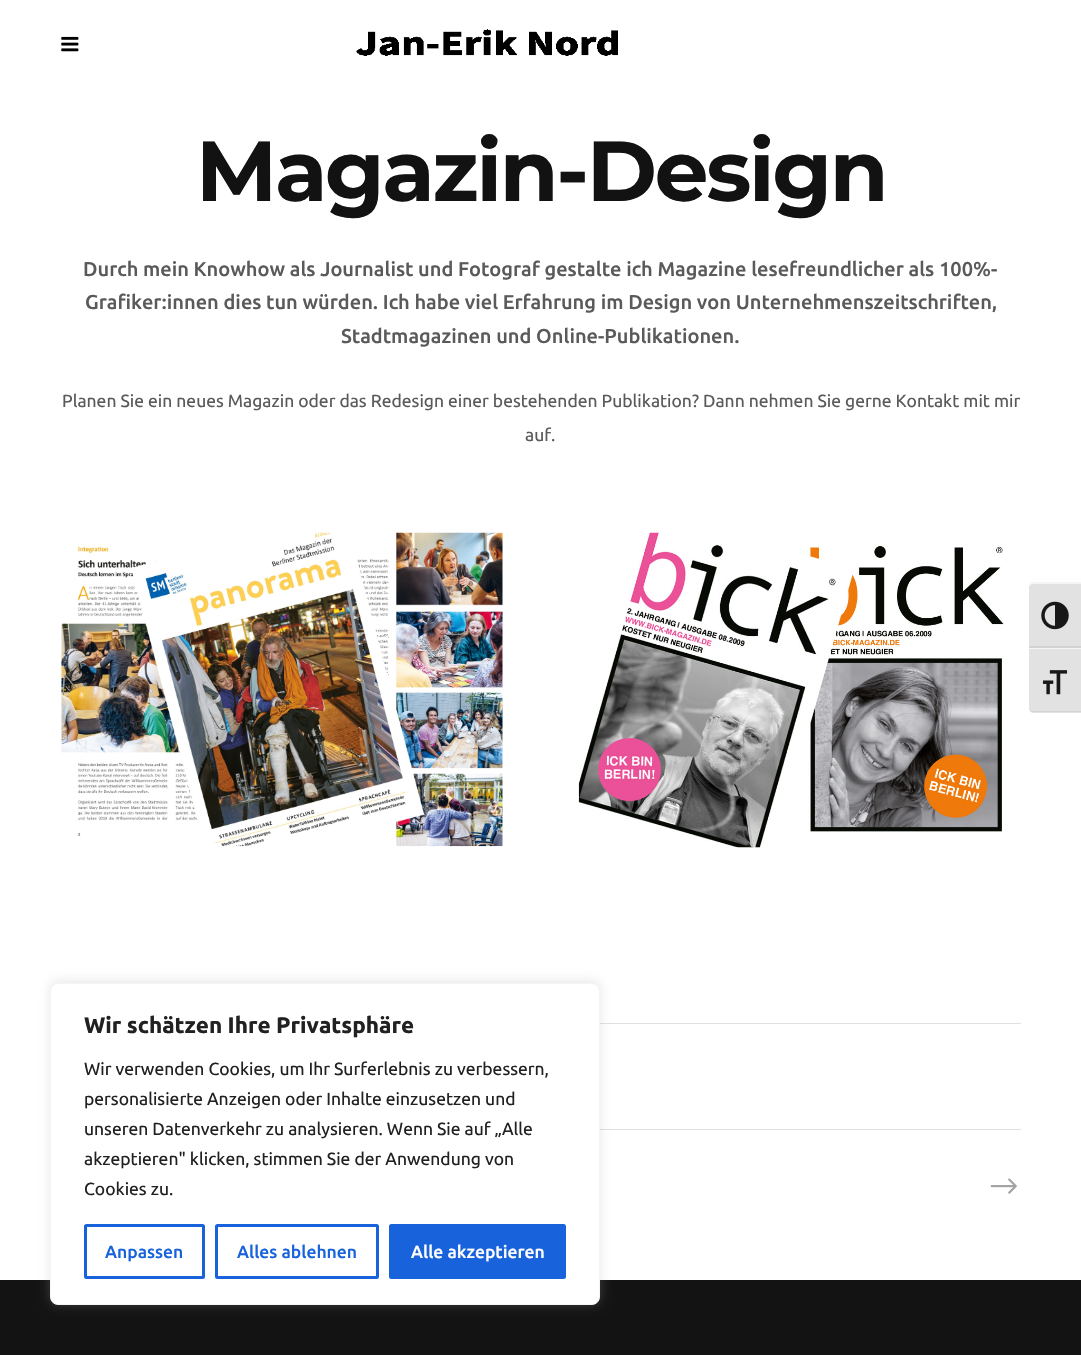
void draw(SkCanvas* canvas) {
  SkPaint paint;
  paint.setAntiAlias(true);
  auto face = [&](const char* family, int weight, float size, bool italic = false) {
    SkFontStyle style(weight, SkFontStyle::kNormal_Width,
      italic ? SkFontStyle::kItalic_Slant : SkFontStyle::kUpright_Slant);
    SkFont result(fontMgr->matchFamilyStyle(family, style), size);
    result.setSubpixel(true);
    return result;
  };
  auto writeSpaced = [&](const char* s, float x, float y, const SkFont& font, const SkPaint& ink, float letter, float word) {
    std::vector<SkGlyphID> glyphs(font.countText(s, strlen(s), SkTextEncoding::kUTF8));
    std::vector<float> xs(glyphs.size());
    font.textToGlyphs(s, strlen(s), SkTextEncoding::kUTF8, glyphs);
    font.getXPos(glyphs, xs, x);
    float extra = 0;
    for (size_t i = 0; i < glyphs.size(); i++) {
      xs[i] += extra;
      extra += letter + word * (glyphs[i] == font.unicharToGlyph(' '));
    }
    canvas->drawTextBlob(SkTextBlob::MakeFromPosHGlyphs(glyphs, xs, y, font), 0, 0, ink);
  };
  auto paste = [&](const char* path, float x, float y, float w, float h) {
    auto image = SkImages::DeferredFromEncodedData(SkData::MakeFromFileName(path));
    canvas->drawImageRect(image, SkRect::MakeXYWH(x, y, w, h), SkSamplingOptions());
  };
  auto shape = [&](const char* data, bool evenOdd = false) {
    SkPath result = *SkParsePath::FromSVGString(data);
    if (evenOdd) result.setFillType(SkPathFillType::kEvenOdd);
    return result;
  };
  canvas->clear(0xffffffff);
  paste("img/1.png", 61, 36, 18, 16);
  paste("img/2.png", 356, 29, 262, 27);
  paste("img/3.png", 61, 532, 442, 315);
  paste("img/4.png", 578, 532, 426, 316);
  paint.setColor(0xffe0e0e0);
  canvas->drawRect(SkRect::MakeXYWH(600, 1023, 421, 1), paint);
  canvas->drawRect(SkRect::MakeXYWH(600, 1129, 421, 1), paint);
  paste("img/5.png", 990, 1178, 27, 16);
  paint.setColor(0xff131313);
  canvas->drawRect(SkRect::MakeXYWH(0, 1280, 1081, 75), paint);
  paint.setColor(0xffe2e2e2);
  canvas->drawPath(shape("M1034 583H1081V648H1029V588C1029 585 1031 583 1034 583Z"), paint);
  paint.setColor(0xfff5f5f5);
  canvas->drawPath(shape("M1034 584H1081V582H1032C1030 583 1029 586 1029 588C1029 585 1031 584 1034 584Z"), paint);
  paint.setColor(0xffd2d2d2);
  canvas->drawRect(SkRect::MakeXYWH(1029, 646, 52, 2), paint);
  paste("img/6.png", 1041, 601, 28, 29);
  paint.setColor(0xffe2e2e2);
  canvas->drawPath(shape("M1029 648H1081V713H1034C1031 713 1029 711 1029 708Z"), paint);
  paint.setColor(0xfff5f5f5);
  canvas->drawRect(SkRect::MakeXYWH(1029, 648, 52, 1), paint);
  paint.setColor(0xffd2d2d2);
  canvas->drawPath(shape("M1081 712V711H1034C1031 711 1029 710 1029 708C1029 710 1031 712 1034 712Z"), paint);
  paste("img/7.png", 1042, 670, 26, 25);
  paint.setColor(0x4dacabab);
  paint.setMaskFilter(SkMaskFilter::MakeBlur(kNormal_SkBlurStyle, 6));
  canvas->drawRoundRect(SkRect::MakeXYWH(50, 981, 550, 323), 8, 8, paint);
  paint.setMaskFilter(nullptr);
  paint.setColor(0xffffffff);
  canvas->drawRoundRect(SkRect::MakeXYWH(50.5f, 983.5f, 549, 321), 7.5f, 7.5f, paint);
  paint.setStroke(true);
  paint.setStrokeWidth(1);
  paint.setColor(0xfff4f4f4);
  canvas->drawRoundRect(SkRect::MakeXYWH(50.5f, 983.5f, 549, 321), 7.5f, 7.5f, paint);
  paint.setStrokeWidth(3);
  paint.setColor(0xff1863dc);
  canvas->drawRoundRect(SkRect::MakeXYWH(85.5f, 1225.5f, 118, 52), 1, 1, paint);
  canvas->drawRoundRect(SkRect::MakeXYWH(216.5f, 1225.5f, 161, 52), 1, 1, paint);
  paint.setStroke(false);
  canvas->drawRoundRect(SkRect::MakeXYWH(390.5f, 1225.5f, 174, 52), 1, 1, paint);
  paint.setStroke(true);
  canvas->drawRoundRect(SkRect::MakeXYWH(390.5f, 1225.5f, 174, 52), 1, 1, paint);
  auto f0 = face("Montserrat", 100, 85);
  paint.setStroke(false);
  paint.setColor(0xff121212);
  writeSpaced("Magazin-Design", 196, 201, f0, paint, -2.25f, 0);
  auto f1 = face("Ubuntu", 500, 20);
  paint.setColor(0xff5a5a5a);
  {
    const struct { const char* s; float x, y; } items[] = {
      {"Durch mein Knowhow als Journalist und Fotograf gestalte ich Magazine lesefreundlicher als 100%-", 83, 276},
      {"Grafiker:innen dies tun würden. Ich habe viel Erfahrung im Design von Unternehmenszeitschriften,", 85, 309},
      {"Stadtmagazinen und Online-Publikationen.", 341, 343},
    };
    for (auto [s, x, y] : items) {
      canvas->drawString(s, x, y, f1, paint);
    }
  }
  auto f2 = face("Ubuntu", 400, 17.5f);
  canvas->drawString("Planen Sie ein neues Magazin oder das Redesign einer bestehenden Publikation? Dann nehmen Sie gerne Kontakt mit mir", 62, 407, f2, paint);
  canvas->drawString("auf.", 525, 441, f2, paint);
  auto f3 = face("Ubuntu", 700, 22.5f);
  paint.setColor(0xff212121);
  canvas->drawString("Wir schätzen Ihre Privatsphäre", 84, 1033, f3, paint);
  {
    const struct { const char* s; float x, y; } items[] = {
      {"Wir verwenden Cookies, um Ihr Surferlebnis zu verbessern,", 84, 1075},
      {"personalisierte Anzeigen oder Inhalte einzusetzen und", 84, 1105},
      {"unseren Datenverkehr zu analysieren. Wenn Sie auf „Alle", 84, 1135},
      {"akzeptieren\" klicken, stimmen Sie der Anwendung von", 84, 1165},
      {"Cookies zu.", 84, 1195},
    };
    for (auto [s, x, y] : items) {
      canvas->drawString(s, x, y, f2, paint);
    }
  }
  auto f4 = face("Ubuntu", 500, 17.5f);
  paint.setColor(0xff1863dc);
  canvas->drawString("Anpassen", 105, 1258, f4, paint);
  canvas->drawString("Alles ablehnen", 237, 1258, f4, paint);
  paint.setColor(0xffffffff);
  canvas->drawString("Alle akzeptieren", 411, 1258, f4, paint);
}
